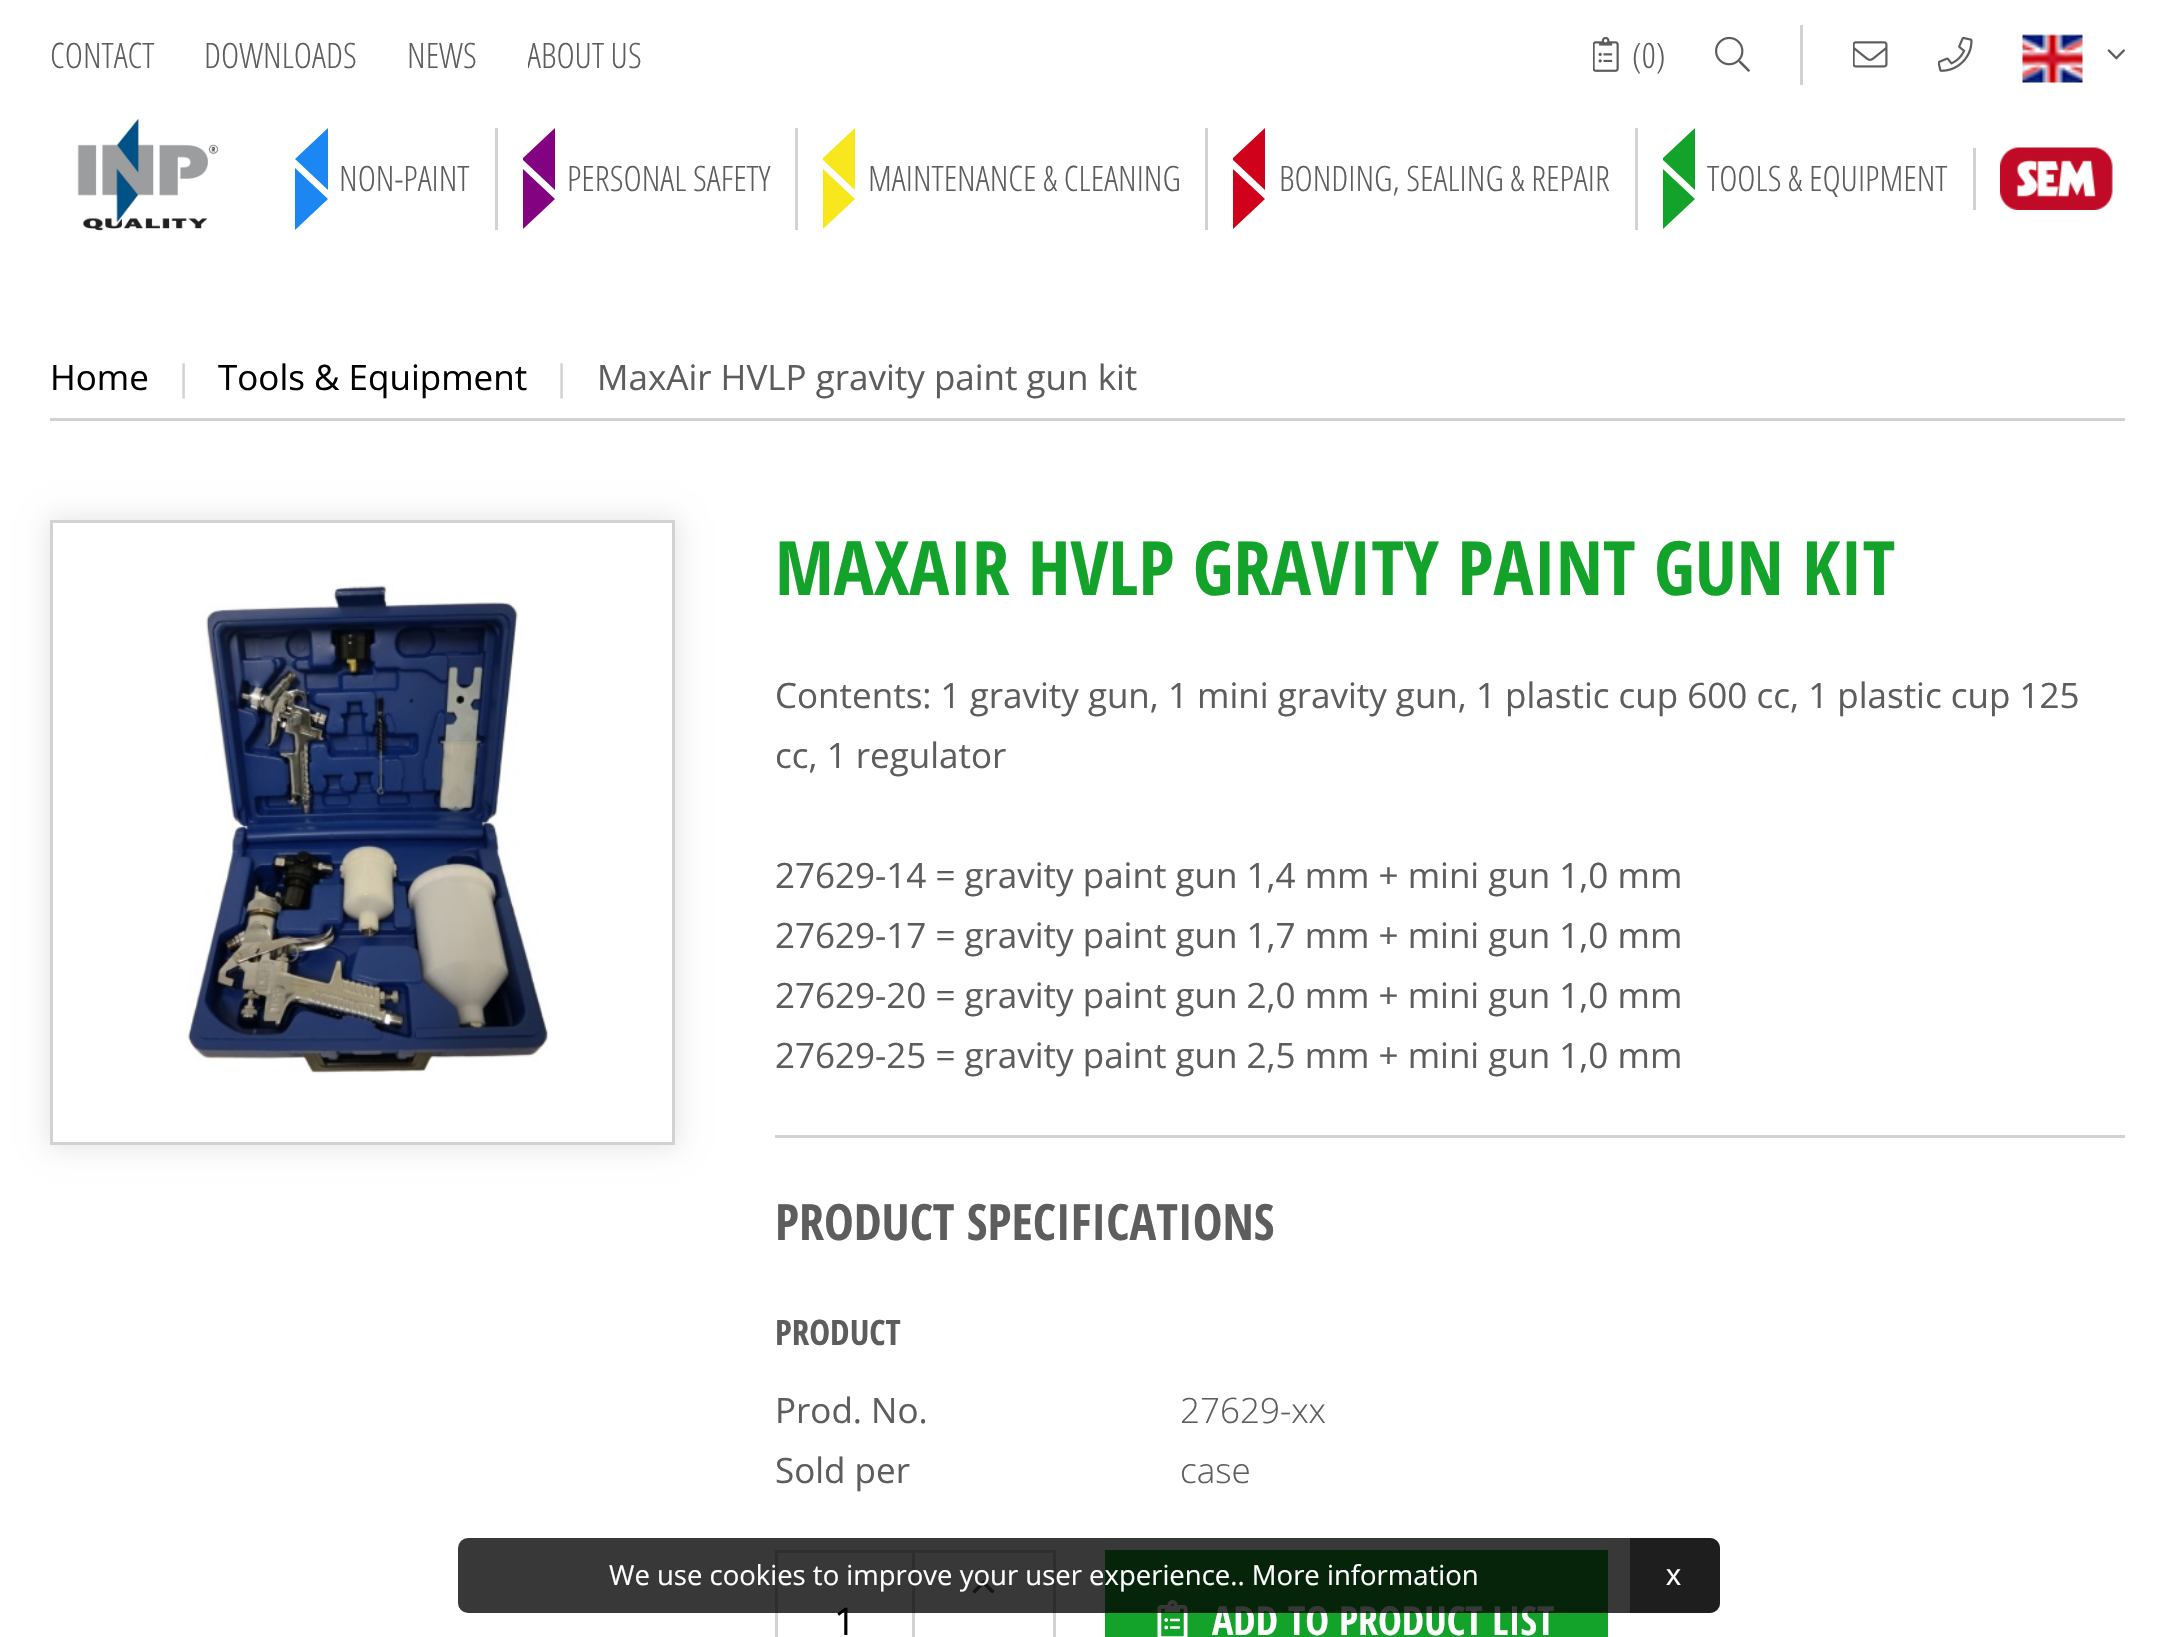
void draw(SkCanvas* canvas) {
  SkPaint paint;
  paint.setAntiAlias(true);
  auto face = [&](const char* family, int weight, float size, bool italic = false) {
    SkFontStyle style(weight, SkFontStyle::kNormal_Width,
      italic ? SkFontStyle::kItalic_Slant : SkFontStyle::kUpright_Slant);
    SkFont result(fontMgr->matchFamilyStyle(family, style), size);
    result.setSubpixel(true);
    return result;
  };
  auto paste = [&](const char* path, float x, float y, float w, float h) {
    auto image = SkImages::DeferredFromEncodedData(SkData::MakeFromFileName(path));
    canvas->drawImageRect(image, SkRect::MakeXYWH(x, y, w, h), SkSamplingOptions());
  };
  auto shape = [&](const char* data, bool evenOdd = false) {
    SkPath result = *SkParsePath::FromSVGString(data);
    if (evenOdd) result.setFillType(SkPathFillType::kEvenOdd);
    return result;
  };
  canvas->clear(0xffffffff);
  paste("img/1.png", 1593, 36, 26, 36);
  paste("img/2.png", 1715, 36, 35, 36);
  paint.setColor(0xffd2d2d2);
  canvas->drawRect(SkRect::MakeXYWH(1800, 25, 3, 60), paint);
  paste("img/3.png", 1853, 41, 35, 27);
  paste("img/4.png", 1938, 36, 35, 36);
  paste("img/5.png", 2022, 34, 61, 49);
  paste("img/6.png", 2107, 49, 18, 11);
  paste("img/7.png", 77, 118, 142, 113);
  paint.setColor(0xff1c86f2);
  canvas->drawPath(shape("M295 168L328 199L295 230ZM328 128V190L295 159Z"), paint);
  paint.setColor(0xffd2d2d2);
  canvas->drawRect(SkRect::MakeXYWH(495, 128, 3, 102), paint);
  canvas->save();
  canvas->clipRect(SkRect::MakeXYWH(523, 128, 32, 102));
  paint.setColor(0xff830281);
  canvas->drawPath(shape("M522 168L555 199L522 230ZM555 128V190L522 159Z"), paint);
  canvas->restore();
  paint.setColor(0xffd2d2d2);
  canvas->drawRect(SkRect::MakeXYWH(795, 128, 3, 102), paint);
  canvas->save();
  canvas->clipRect(SkRect::MakeXYWH(823, 128, 32, 102));
  paint.setColor(0xfff8e71c);
  canvas->drawPath(shape("M822 168L855 199L822 230ZM855 128V190L822 159Z"), paint);
  canvas->restore();
  paint.setColor(0xffd2d2d2);
  canvas->drawRect(SkRect::MakeXYWH(1205, 128, 3, 102), paint);
  canvas->save();
  canvas->clipRect(SkRect::MakeXYWH(1233, 128, 32, 102));
  paint.setColor(0xffd0021b);
  canvas->drawPath(shape("M1232 168L1265 199L1232 230ZM1265 128V190L1232 159Z"), paint);
  canvas->restore();
  paint.setColor(0xffd2d2d2);
  canvas->drawRect(SkRect::MakeXYWH(1635, 128, 3, 102), paint);
  canvas->save();
  canvas->clipRect(SkRect::MakeXYWH(1663, 128, 32, 102));
  paint.setColor(0xff13a32a);
  canvas->drawPath(shape("M1662 168L1695 199L1662 230ZM1695 128V190L1662 159Z"), paint);
  canvas->restore();
  paint.setColor(0xffd2d2d2);
  canvas->drawRect(SkRect::MakeXYWH(1973, 148, 3, 62), paint);
  paste("img/8.png", 2000, 147, 113, 63);
  canvas->drawRect(SkRect::MakeXYWH(50, 418, 2075, 3), paint);
  canvas->save();
  canvas->clipPath(shape("M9 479H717V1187H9ZM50 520H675V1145H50Z", true), true);
  paint.setColor(0x1a000000);
  paint.setMaskFilter(SkMaskFilter::MakeBlur(kNormal_SkBlurStyle, 12.5f));
  canvas->drawRect(SkRect::MakeXYWH(48, 518, 630, 630), paint);
  paint.setMaskFilter(nullptr);
  canvas->restore();
  paint.setStroke(true);
  paint.setStrokeWidth(3);
  paint.setColor(0xffd2d2d2);
  canvas->drawRect(SkRect::MakeXYWH(51.5f, 521.5f, 622, 622), paint);
  paste("img/9.png", 186, 582, 363, 492);
  paint.setStroke(false);
  canvas->drawRect(SkRect::MakeXYWH(775, 1135, 1350, 3), paint);
  paint.setStroke(true);
  canvas->drawRect(SkRect::MakeXYWH(776.5f, 1551.5f, 137, 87), paint);
  paint.setStroke(false);
  canvas->drawRect(SkRect::MakeXYWH(915, 1550, 140, 3), paint);
  canvas->drawRect(SkRect::MakeXYWH(1053, 1550, 3, 87), paint);
  paste("img/10.png", 972, 1580, 23, 14);
  paint.setColor(0xff13a32a);
  canvas->drawRect(SkRect::MakeXYWH(1105, 1550, 503, 87), paint);
  paste("img/11.png", 1157, 1600, 31, 37);
  auto f0 = face("Open Sans Condensed", 300, 35);
  paint.setColor(0xff5d5d5d);
  {
    const struct { const char* s; float x, y; } items[] = {
      {"CONTACT", 50, 68},
      {"DOWNLOADS", 204, 68},
      {"NEWS", 407, 68},
    };
    for (auto [s, x, y] : items) {
      canvas->drawString(s, x, y, f0, paint);
    }
  }
  canvas->save();
  canvas->clipRect(SkRect::MakeXYWH(528, 25, 115, 60));
  canvas->drawString("ABOUT US", 527, 68, f0, paint);
  canvas->restore();
  {
    const struct { const char* s; float x, y; } items[] = {
      {"(0)", 1632, 68},
      {"NON-PAINT", 339, 191},
      {"PERSONAL SAFETY", 567, 191},
      {"MAINTENANCE & CLEANING", 868, 191},
      {"BONDING, SEALING & REPAIR", 1279, 191},
      {"TOOLS & EQUIPMENT", 1707, 191},
    };
    for (auto [s, x, y] : items) {
      canvas->drawString(s, x, y, f0, paint);
    }
  }
  auto f1 = face("Open Sans", 400, 35);
  paint.setColor(0xff000000);
  canvas->drawString("Home", 50, 390, f1, paint);
  paint.setColor(0xffd2d2d2);
  canvas->drawString("|", 174, 390, f1, paint);
  paint.setColor(0xff000000);
  canvas->drawString("Tools & Equipment", 218, 390, f1, paint);
  paint.setColor(0xffd2d2d2);
  canvas->drawString("|", 552, 390, f1, paint);
  paint.setColor(0xff5d5d5d);
  canvas->drawString("MaxAir HVLP gravity paint gun kit", 597, 390, f1, paint);
  auto f2 = face("Open Sans Condensed", 700, 75);
  paint.setColor(0xff13a32a);
  canvas->drawString("MAXAIR HVLP GRAVITY PAINT GUN KIT", 775, 595, f2, paint);
  paint.setColor(0xff5d5d5d);
  {
    const struct { const char* s; float x, y; } items[] = {
      {"Contents: 1 gravity gun, 1 mini gravity gun, 1 plastic cup 600 cc, 1 plastic cup 125", 775, 708},
      {"cc, 1 regulator", 775, 768},
      {"27629-14 = gravity paint gun 1,4 mm + mini gun 1,0 mm", 775, 888},
      {"27629-17 = gravity paint gun 1,7 mm + mini gun 1,0 mm", 775, 948},
      {"27629-20 = gravity paint gun 2,0 mm + mini gun 1,0 mm", 775, 1008},
      {"27629-25 = gravity paint gun 2,5 mm + mini gun 1,0 mm", 775, 1068},
    };
    for (auto [s, x, y] : items) {
      canvas->drawString(s, x, y, f1, paint);
    }
  }
  auto f3 = face("Open Sans Condensed", 700, 50);
  canvas->drawString("PRODUCT SPECIFICATIONS", 775, 1240, f3, paint);
  auto f4 = face("Open Sans Condensed", 700, 35);
  canvas->drawString("PRODUCT", 775, 1345, f4, paint);
  canvas->drawString("Prod. No.", 775, 1423, f1, paint);
  auto f5 = face("Open Sans", 300, 35);
  canvas->drawString("27629-xx", 1180, 1423, f5, paint);
  canvas->drawString("Sold per", 775, 1483, f1, paint);
  canvas->drawString("case", 1180, 1483, f5, paint);
  auto f6 = face("Open Sans", 400, 38);
  paint.setColor(0xff000000);
  canvas->drawString("1", 834, 1635, f6, paint);
  auto f7 = face("Open Sans Condensed", 700, 40);
  paint.setColor(0xffffffff);
  canvas->drawString("ADD TO PRODUCT LIST", 1212, 1635, f7, paint);
  paint.setColor(0xc7000000);
  canvas->drawRoundRect(SkRect::MakeXYWH(458, 1538, 1262, 75), 10, 10, paint);
  auto f8 = face("Open Sans", 400, 27.5f);
  paint.setColor(0xffffffff);
  canvas->drawString("We use cookies to improve your user experience.. More information", 609, 1585, f8, paint);
  paint.setColor(0x7a000000);
  canvas->drawPath(shape("M1630 1538H1710C1715.5 1538 1720 1542.5 1720 1548V1603C1720 1608.5 1715.5 1613 1710 1613H1630Z"), paint);
  auto f9 = face("Liberation Sans", 400, 30);
  paint.setColor(0xffffffff);
  canvas->drawString("x", 1666, 1585, f9, paint);
}
